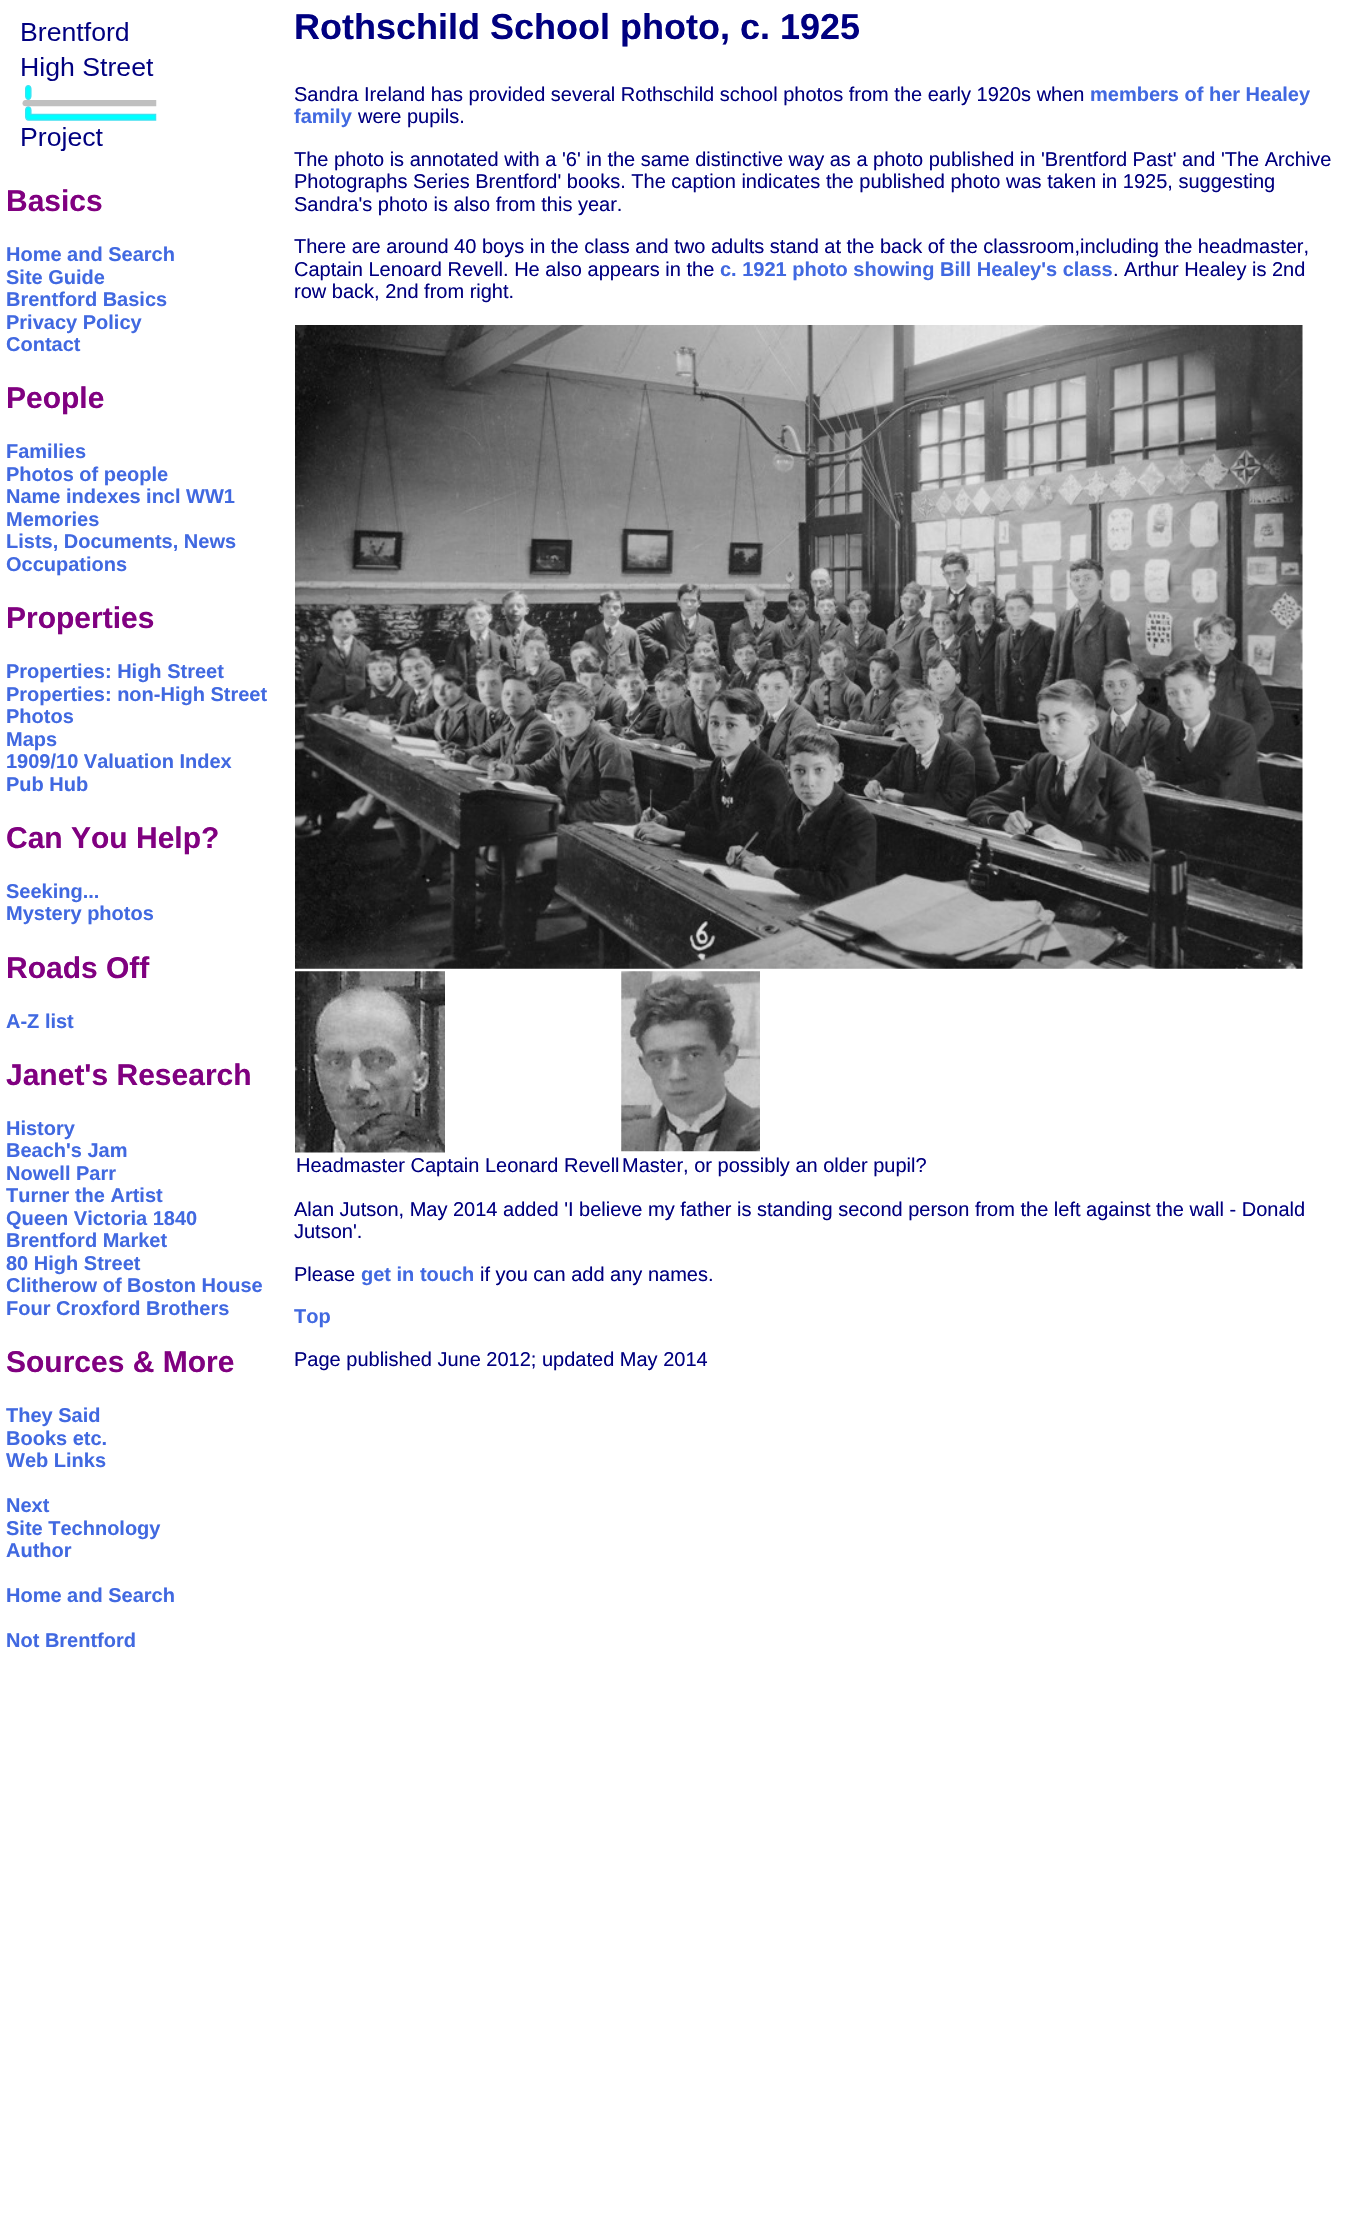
void draw(SkCanvas* canvas) {
  SkPaint paint;
  paint.setAntiAlias(true);
  auto face = [&](const char* family, int weight, float size, bool italic = false) {
    SkFontStyle style(weight, SkFontStyle::kNormal_Width,
      italic ? SkFontStyle::kItalic_Slant : SkFontStyle::kUpright_Slant);
    SkFont result(fontMgr->matchFamilyStyle(family, style), size);
    result.setSubpixel(true);
    return result;
  };
  auto paste = [&](const char* path, float x, float y, float w, float h) {
    auto image = SkImages::DeferredFromEncodedData(SkData::MakeFromFileName(path));
    canvas->drawImageRect(image, SkRect::MakeXYWH(x, y, w, h), SkSamplingOptions());
  };
  canvas->clear(0xffffffff);
  paste("img/1.png", 22, 22, 135, 129);
  paste("img/2.png", 295, 325, 1008, 644);
  paste("img/3.png", 295, 971, 150, 182);
  paste("img/4.png", 621, 971, 139, 181);
  auto f0 = face("Liberation Sans", 700, 30);
  paint.setColor(0xff800080);
  canvas->drawString("Basics", 6, 211, f0, paint);
  auto f1 = face("Liberation Sans", 700, 20);
  paint.setColor(0xff4169e1);
  {
    const struct { const char* s; float x, y; } items[] = {
      {"Home and Search", 6, 261},
      {"Site Guide", 6, 284},
      {"Brentford Basics", 6, 306},
      {"Privacy Policy", 6, 329},
      {"Contact", 6, 351},
    };
    for (auto [s, x, y] : items) {
      canvas->drawString(s, x, y, f1, paint);
    }
  }
  paint.setColor(0xff800080);
  canvas->drawString("People", 6, 408, f0, paint);
  paint.setColor(0xff4169e1);
  {
    const struct { const char* s; float x, y; } items[] = {
      {"Families", 6, 458},
      {"Photos of people", 6, 481},
      {"Name indexes incl WW1", 6, 503},
      {"Memories", 6, 526},
      {"Lists, Documents, News", 6, 548},
      {"Occupations", 6, 571},
    };
    for (auto [s, x, y] : items) {
      canvas->drawString(s, x, y, f1, paint);
    }
  }
  paint.setColor(0xff800080);
  canvas->drawString("Properties", 6, 628, f0, paint);
  paint.setColor(0xff4169e1);
  {
    const struct { const char* s; float x, y; } items[] = {
      {"Properties: High Street", 6, 678},
      {"Properties: non-High Street", 6, 701},
      {"Photos", 6, 723},
      {"Maps", 6, 746},
      {"1909/10 Valuation Index", 6, 768},
      {"Pub Hub", 6, 791},
    };
    for (auto [s, x, y] : items) {
      canvas->drawString(s, x, y, f1, paint);
    }
  }
  paint.setColor(0xff800080);
  canvas->drawString("Can You Help?", 6, 848, f0, paint);
  paint.setColor(0xff4169e1);
  canvas->drawString("Seeking...", 6, 898, f1, paint);
  canvas->drawString("Mystery photos", 6, 920, f1, paint);
  paint.setColor(0xff800080);
  canvas->drawString("Roads Off", 6, 978, f0, paint);
  paint.setColor(0xff4169e1);
  canvas->drawString("A-Z list", 6, 1028, f1, paint);
  paint.setColor(0xff800080);
  canvas->drawString("Janet's Research", 6, 1085, f0, paint);
  paint.setColor(0xff4169e1);
  {
    const struct { const char* s; float x, y; } items[] = {
      {"History", 6, 1135},
      {"Beach's Jam", 6, 1157},
      {"Nowell Parr", 6, 1180},
      {"Turner the Artist", 6, 1202},
      {"Queen Victoria 1840", 6, 1225},
      {"Brentford Market", 6, 1247},
      {"80 High Street", 6, 1270},
      {"Clitherow of Boston House", 6, 1292},
      {"Four Croxford Brothers", 6, 1315},
    };
    for (auto [s, x, y] : items) {
      canvas->drawString(s, x, y, f1, paint);
    }
  }
  paint.setColor(0xff800080);
  canvas->drawString("Sources & More", 6, 1372, f0, paint);
  paint.setColor(0xff4169e1);
  {
    const struct { const char* s; float x, y; } items[] = {
      {"They Said", 6, 1422},
      {"Books etc.", 6, 1445},
      {"Web Links", 6, 1467},
      {"Next", 6, 1512},
      {"Site Technology", 6, 1535},
      {"Author", 6, 1557},
      {"Home and Search", 6, 1602},
      {"Not Brentford", 6, 1647},
    };
    for (auto [s, x, y] : items) {
      canvas->drawString(s, x, y, f1, paint);
    }
  }
  auto f2 = face("Liberation Sans", 700, 36);
  paint.setColor(0xff000080);
  canvas->drawString("Rothschild School photo, c. 1925", 294, 39, f2, paint);
  auto f3 = face("Liberation Sans", 400, 20);
  canvas->drawString("Sandra Ireland has provided several Rothschild school photos from the early 1920s when", 294, 101, f3, paint);
  paint.setColor(0xff4169e1);
  canvas->drawString("members of her Healey", 1090, 101, f1, paint);
  canvas->drawString("family", 294, 123, f1, paint);
  paint.setColor(0xff000080);
  {
    const struct { const char* s; float x, y; } items[] = {
      {"were pupils.", 358, 123},
      {"The photo is annotated with a '6' in the same distinctive way as a photo published in 'Brentford Past' and 'The Archive", 294, 166},
      {"Photographs Series Brentford' books. The caption indicates the published photo was taken in 1925, suggesting", 294, 188},
      {"Sandra's photo is also from this year.", 294, 211},
      {"There are around 40 boys in the class and two adults stand at the back of the classroom,including the headmaster,", 294, 253},
      {"Captain Lenoard Revell. He also appears in the", 294, 276},
    };
    for (auto [s, x, y] : items) {
      canvas->drawString(s, x, y, f3, paint);
    }
  }
  paint.setColor(0xff4169e1);
  canvas->drawString("c. 1921 photo showing Bill Healey's class", 720, 276, f1, paint);
  paint.setColor(0xff000080);
  {
    const struct { const char* s; float x, y; } items[] = {
      {". Arthur Healey is 2nd", 1113, 276},
      {"row back, 2nd from right.", 294, 298},
      {"Headmaster Captain Leonard Revell", 296, 1172},
      {"Master, or possibly an older pupil?", 622, 1172},
      {"Alan Jutson, May 2014 added 'I believe my father is standing second person from the left against the wall - Donald", 294, 1216},
      {"Jutson'.", 294, 1238},
      {"Please", 294, 1281},
    };
    for (auto [s, x, y] : items) {
      canvas->drawString(s, x, y, f3, paint);
    }
  }
  paint.setColor(0xff4169e1);
  canvas->drawString("get in touch", 361, 1281, f1, paint);
  paint.setColor(0xff000080);
  canvas->drawString("if you can add any names.", 480, 1281, f3, paint);
  paint.setColor(0xff4169e1);
  canvas->drawString("Top", 294, 1323, f1, paint);
  paint.setColor(0xff000080);
  canvas->drawString("Page published June 2012; updated May 2014", 294, 1366, f3, paint);
}
